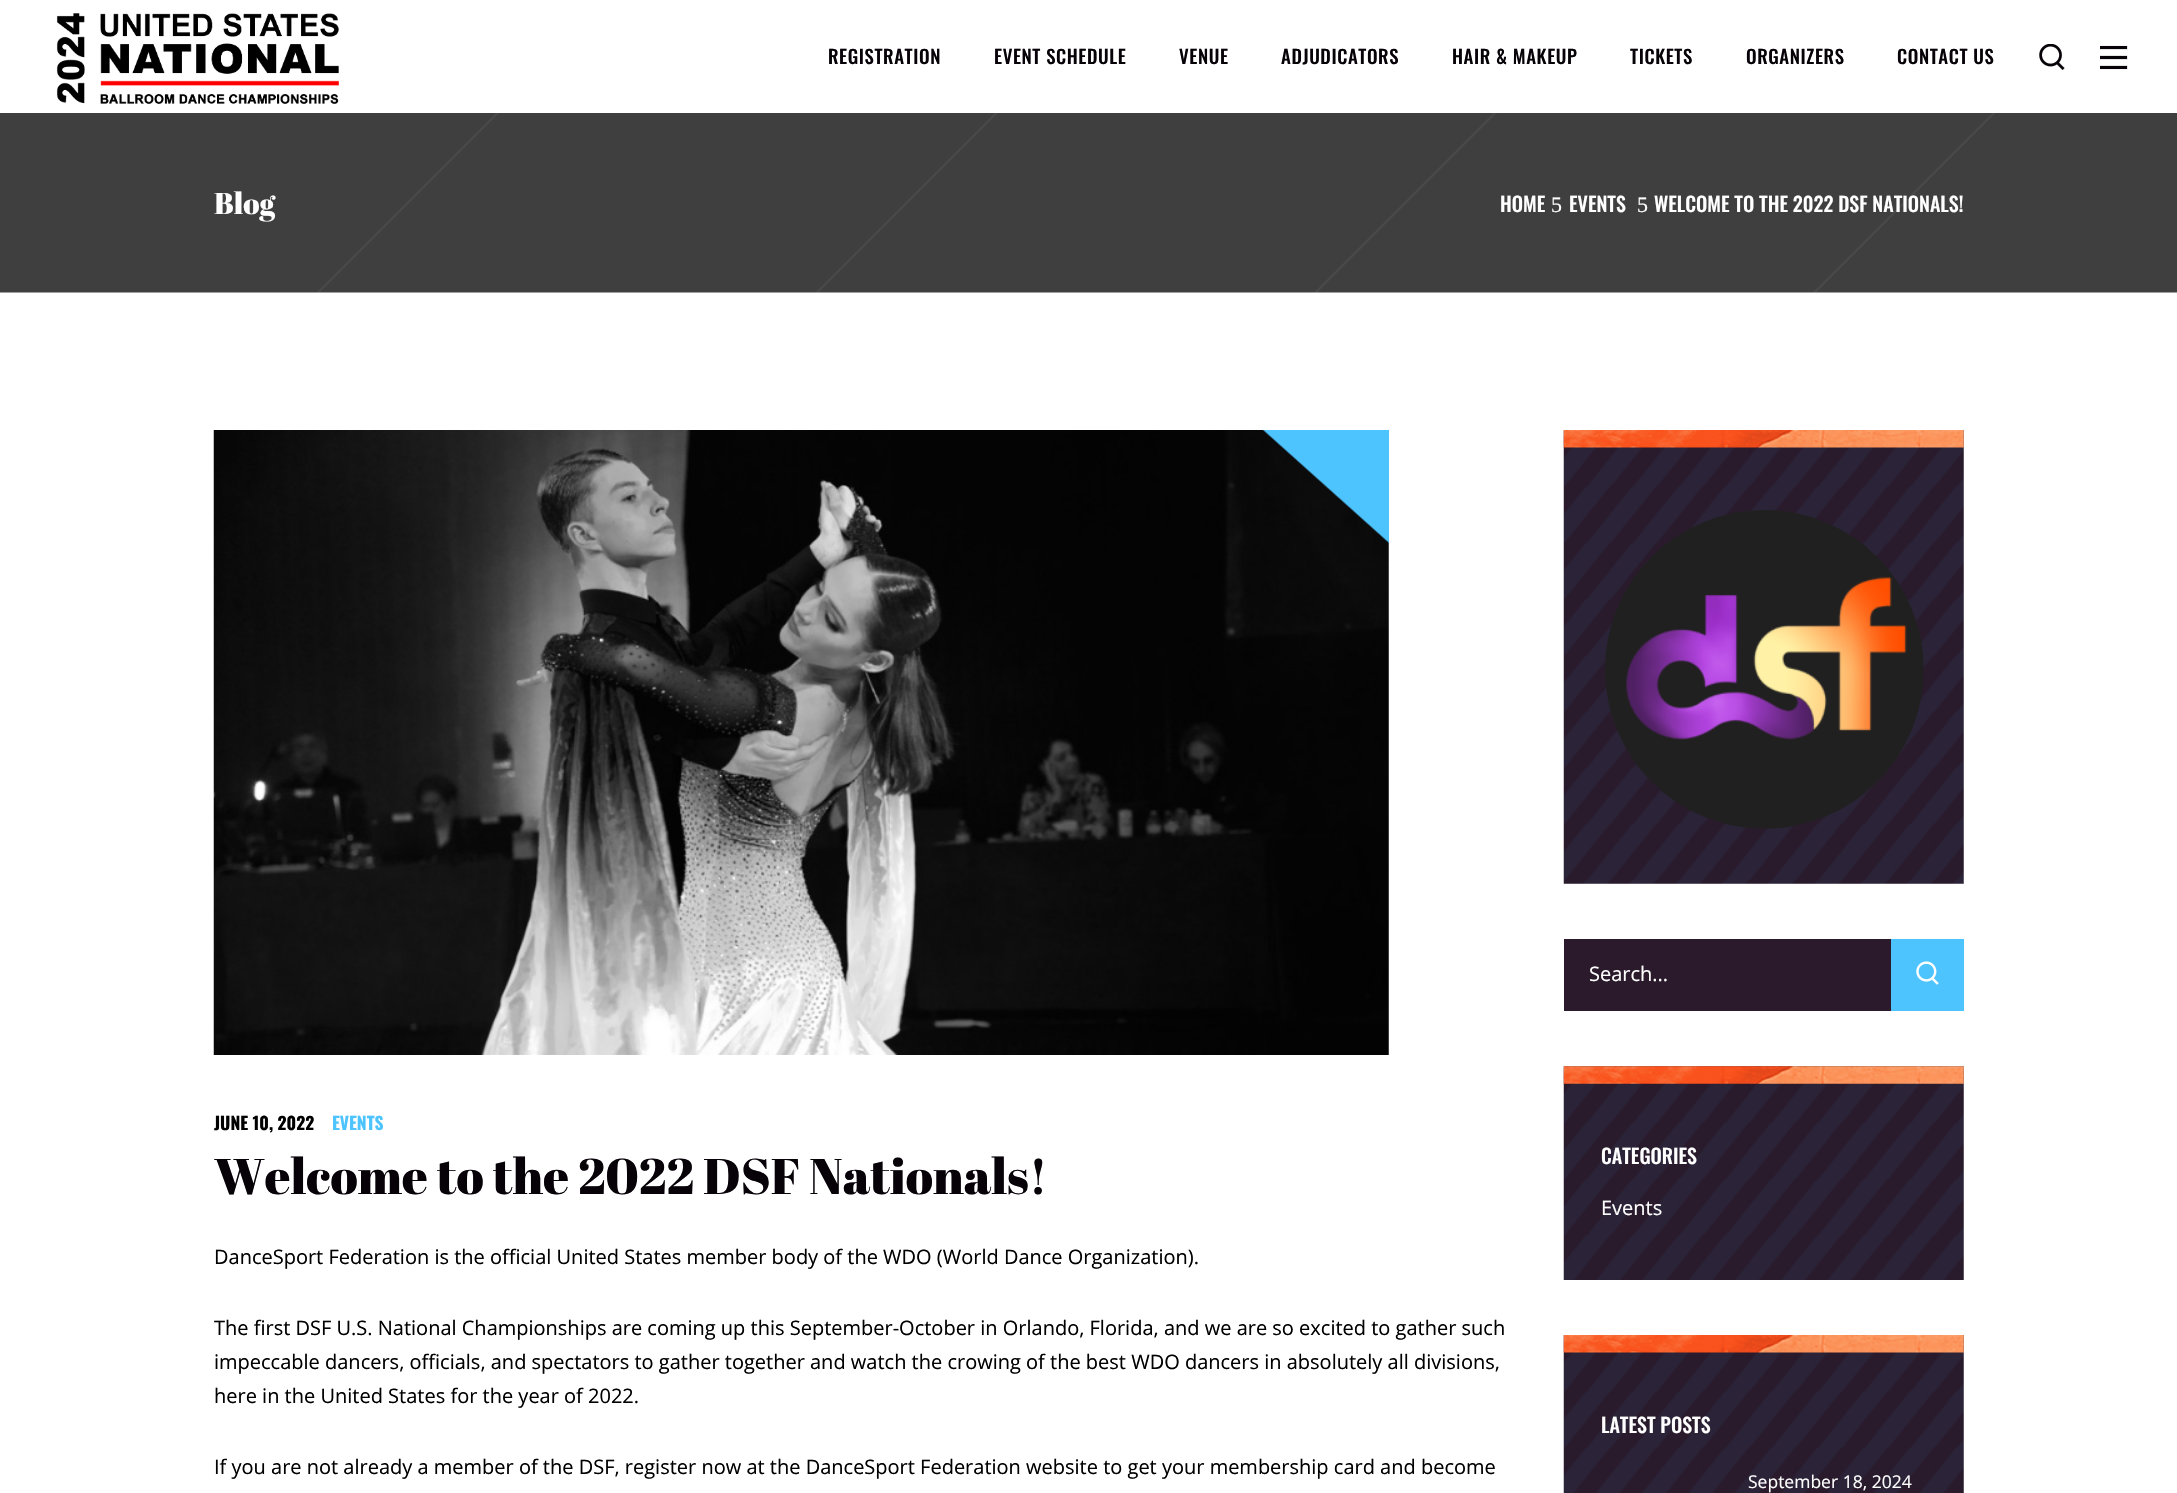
void draw(SkCanvas* canvas) {
  SkPaint paint;
  paint.setAntiAlias(true);
  auto face = [&](const char* family, int weight, float size, bool italic = false) {
    SkFontStyle style(weight, SkFontStyle::kNormal_Width,
      italic ? SkFontStyle::kItalic_Slant : SkFontStyle::kUpright_Slant);
    SkFont result(fontMgr->matchFamilyStyle(family, style), size);
    result.setSubpixel(true);
    return result;
  };
  auto writeSpaced = [&](const char* s, float x, float y, const SkFont& font, const SkPaint& ink, float letter, float word) {
    std::vector<SkGlyphID> glyphs(font.countText(s, strlen(s), SkTextEncoding::kUTF8));
    std::vector<float> xs(glyphs.size());
    font.textToGlyphs(s, strlen(s), SkTextEncoding::kUTF8, glyphs);
    font.getXPos(glyphs, xs, x);
    float extra = 0;
    for (size_t i = 0; i < glyphs.size(); i++) {
      xs[i] += extra;
      extra += letter + word * (glyphs[i] == font.unicharToGlyph(' '));
    }
    canvas->drawTextBlob(SkTextBlob::MakeFromPosHGlyphs(glyphs, xs, y, font), 0, 0, ink);
  };
  auto paste = [&](const char* path, float x, float y, float w, float h) {
    auto image = SkImages::DeferredFromEncodedData(SkData::MakeFromFileName(path));
    canvas->drawImageRect(image, SkRect::MakeXYWH(x, y, w, h), SkSamplingOptions());
  };
  canvas->clear(0xffffffff);
  paste("img/1.png", 56, 13, 283, 91);
  paste("img/2.png", 2039, 44, 26, 26);
  paste("img/3.png", 2100, 45, 28, 25);
  paste("img/4.png", 0, 113, 2177, 180);
  paste("img/5.png", 213, 430, 1176, 625);
  {
    const SkColor colors[] = {0x00000000, 0x004ec4ff, 0xff4ec4ff, 0xff4ec4ff};
    const float stops[] = {0, 0.5f, 0.51f, 1};
    const SkPoint ends[] = {{1269, 550}, {1382, 424}};
    paint.setShader(SkGradientShader::MakeLinear(ends, colors, stops, 4, SkTileMode::kClamp));
    paint.setAlpha(255);
  }
  canvas->drawRect(SkRect::MakeXYWH(1263, 430, 126, 113), paint);
  paste("img/6.png", 1563, 430, 401, 454);
  paste("img/7.png", 1563, 430, 401, 18);
  paste("img/8.png", 1605, 510, 319, 319);
  paint.setShader(nullptr);
  paint.setColor(0xff2a1a2c);
  canvas->drawRect(SkRect::MakeXYWH(1564, 939, 327, 72), paint);
  paint.setColor(0xff4ec4ff);
  canvas->drawRect(SkRect::MakeXYWH(1891, 939, 73, 72), paint);
  paste("img/9.png", 1916, 961, 23, 24);
  paste("img/10.png", 1563, 1066, 401, 214);
  paste("img/11.png", 1563, 1066, 401, 18);
  paste("img/12.png", 1563, 1335, 401, 158);
  paste("img/7.png", 1563, 1335, 401, 18);
  auto f0 = face("Oswald", 500, 18.75f);
  paint.setColor(0xff070108);
  {
    const struct { const char* s; float x, y; } items[] = {
      {"REGISTRATION", 828, 64},
      {"EVENT SCHEDULE", 994, 64},
      {"VENUE", 1179, 64},
      {"ADJUDICATORS", 1281, 64},
      {"HAIR & MAKEUP", 1452, 64},
      {"TICKETS", 1630, 64},
      {"ORGANIZERS", 1746, 64},
      {"CONTACT US", 1897, 64},
    };
    for (auto [s, x, y] : items) {
      writeSpaced(s, x, y, f0, paint, 0.6f, 0);
    }
  }
  auto f1 = face("Abril Fatface", 400, 30);
  paint.setColor(0xffffffff);
  canvas->drawString("Blog", 214, 214, f1, paint);
  auto f2 = face("Oswald", 500, 20);
  canvas->drawString("HOME", 1500, 212, f2, paint);
  auto f3 = face("Liberation Serif", 400, 22);
  canvas->drawString("5", 1551, 212, f3, paint);
  canvas->drawString("EVENTS", 1569, 212, f2, paint);
  canvas->drawString("5", 1637, 212, f3, paint);
  canvas->drawString("WELCOME TO THE 2022 DSF NATIONALS!", 1654, 212, f2, paint);
  auto f4 = face("Oswald", 700, 17.5f);
  paint.setColor(0xff000000);
  canvas->drawString("JUNE 10, 2022", 214, 1130, f4, paint);
  paint.setColor(0xff4ec4ff);
  canvas->drawString("EVENTS", 332, 1130, f4, paint);
  auto f5 = face("Abril Fatface", 400, 50);
  paint.setColor(0xff070108);
  canvas->drawString("Welcome to the 2022 DSF Nationals!", 214, 1194, f5, paint);
  auto f6 = face("Open Sans", 400, 20);
  paint.setColor(0xff000000);
  {
    const struct { const char* s; float x, y; } items[] = {
      {"DanceSport Federation is the official United States member body of the WDO (World Dance Organization).", 214, 1264},
      {"The first DSF U.S. National Championships are coming up this September-October in Orlando, Florida, and we are so excited to gather such", 214, 1335},
      {"impeccable dancers, officials, and spectators to gather together and watch the crowing of the best WDO dancers in absolutely all divisions,", 214, 1369},
      {"here in the United States for the year of 2022.", 214, 1403},
      {"If you are not already a member of the DSF, register now at the DanceSport Federation website to get your membership card and become", 214, 1474},
    };
    for (auto [s, x, y] : items) {
      canvas->drawString(s, x, y, f6, paint);
    }
  }
  paint.setColor(0xffffffff);
  canvas->drawString("Search...", 1589, 981, f6, paint);
  canvas->drawString("CATEGORIES", 1601, 1164, f2, paint);
  canvas->drawString("Events", 1601, 1215, f6, paint);
  canvas->drawString("LATEST POSTS", 1601, 1433, f2, paint);
  auto f7 = face("Open Sans", 400, 17.5f);
  canvas->drawString("September 18, 2024", 1748, 1488, f7, paint);
}
